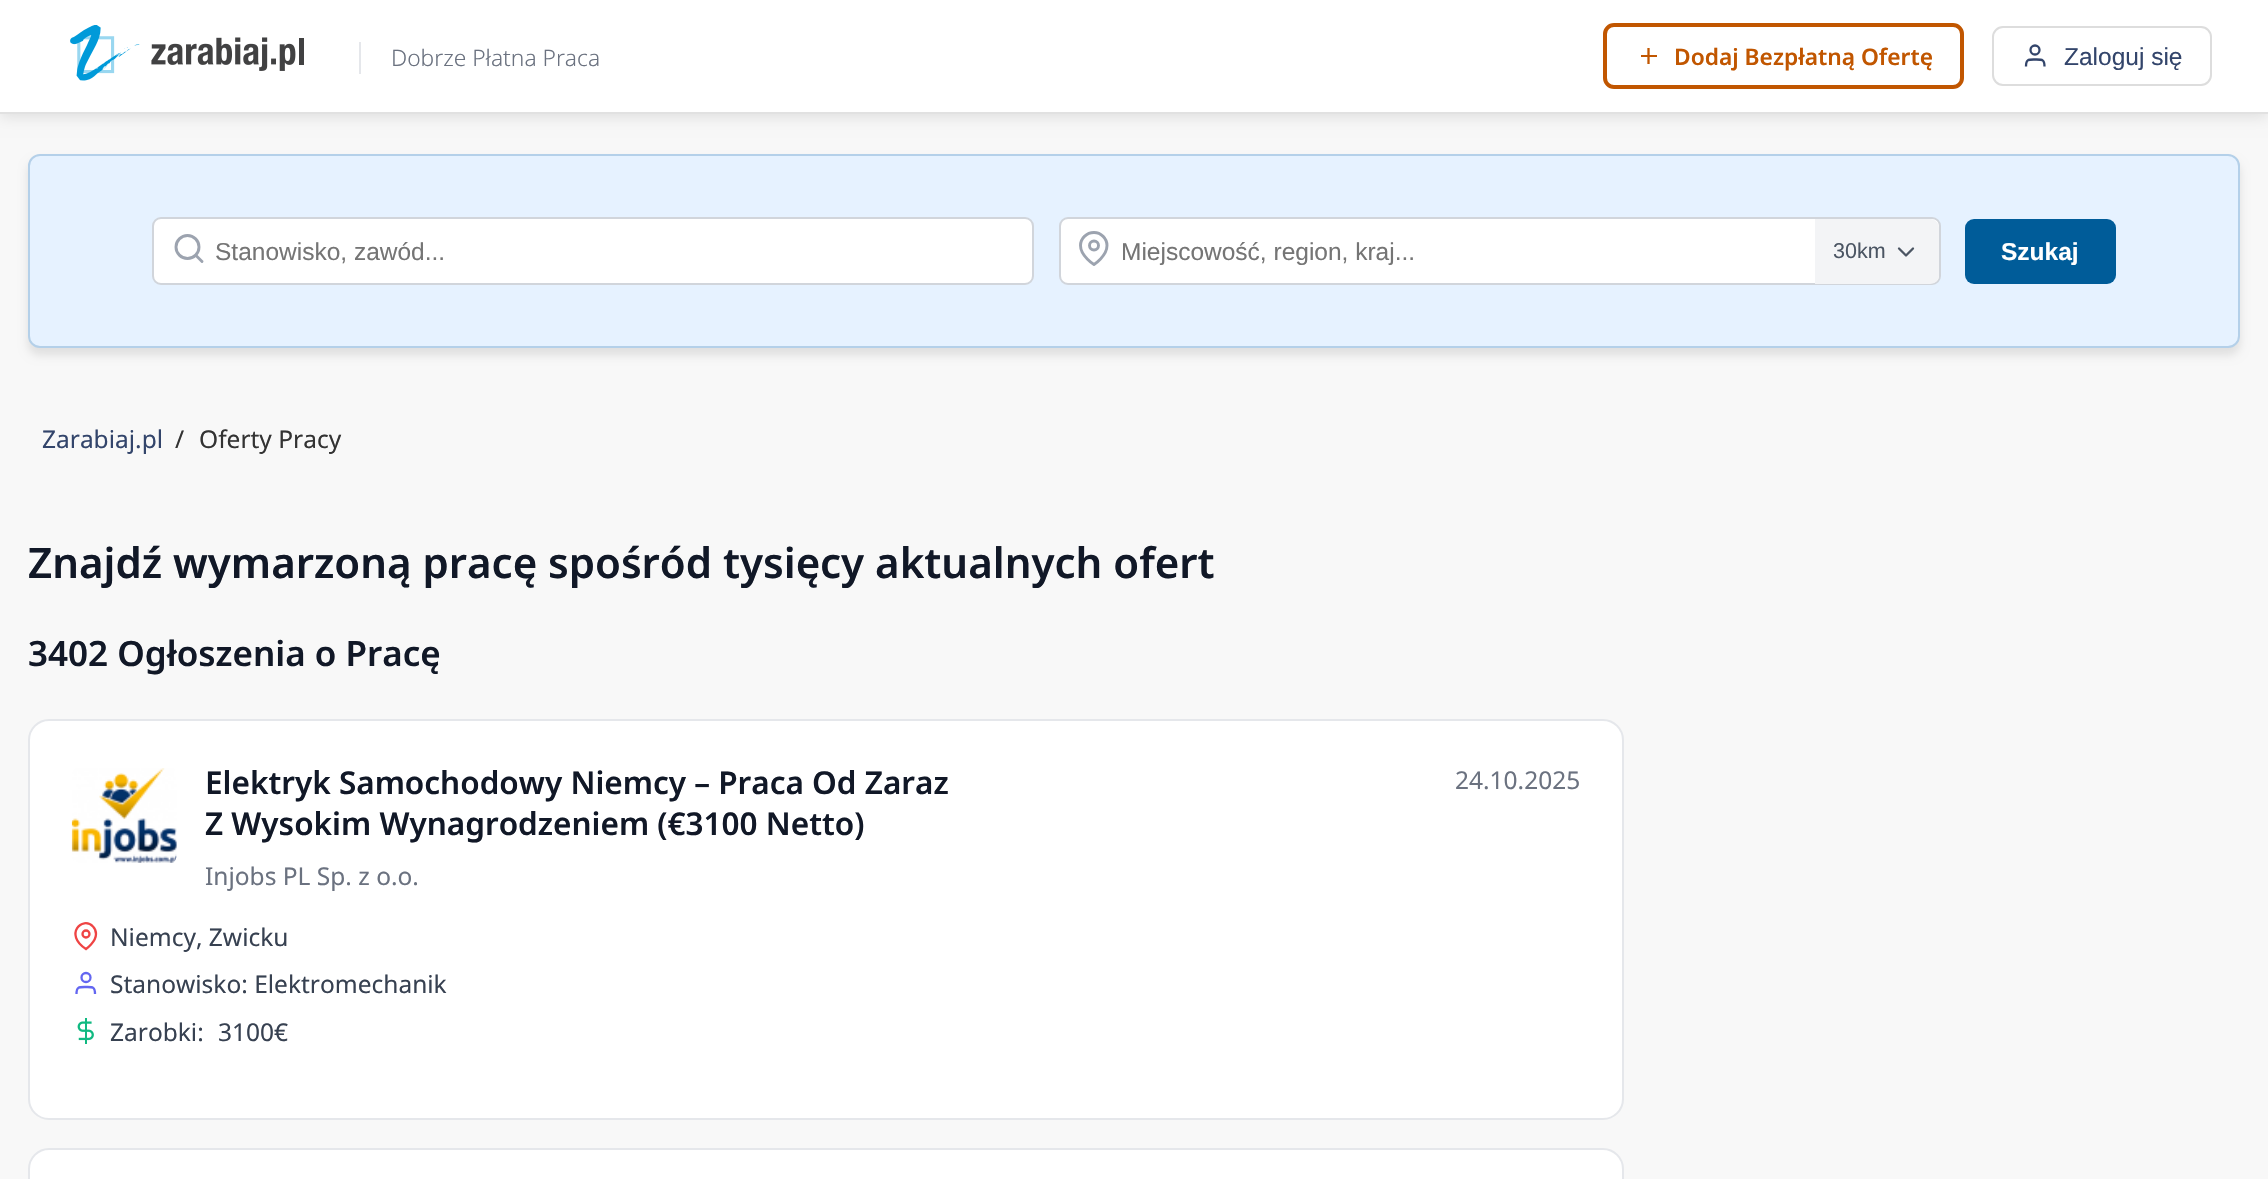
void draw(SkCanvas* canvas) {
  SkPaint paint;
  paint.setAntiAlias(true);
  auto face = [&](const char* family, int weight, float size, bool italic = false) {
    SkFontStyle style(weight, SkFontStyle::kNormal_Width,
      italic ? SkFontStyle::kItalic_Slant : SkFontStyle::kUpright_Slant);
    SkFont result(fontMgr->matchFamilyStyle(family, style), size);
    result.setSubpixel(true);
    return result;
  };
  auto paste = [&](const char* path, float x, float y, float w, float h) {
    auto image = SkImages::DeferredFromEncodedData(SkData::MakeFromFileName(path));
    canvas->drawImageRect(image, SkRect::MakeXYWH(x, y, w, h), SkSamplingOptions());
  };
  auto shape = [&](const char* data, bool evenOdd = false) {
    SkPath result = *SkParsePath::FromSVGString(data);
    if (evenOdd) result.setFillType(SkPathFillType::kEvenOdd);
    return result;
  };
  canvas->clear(0xfff8f8f8);
  paint.setColor(0x1a000000);
  paint.setMaskFilter(SkMaskFilter::MakeBlur(kNormal_SkBlurStyle, 7));
  canvas->drawRect(SkRect::MakeXYWH(0, 4, 2268, 113), paint);
  paint.setMaskFilter(nullptr);
  paint.setColor(0xffffffff);
  canvas->drawRect(SkRect::MakeXYWH(0, 0, 2268, 112), paint);
  paint.setColor(0xffe1e1e1);
  canvas->drawRect(SkRect::MakeXYWH(0, 112, 2268, 2), paint);
  paste("img/1.png", 70, 25, 234, 56);
  paint.setColor(0xffe5e7eb);
  canvas->drawRect(SkRect::MakeXYWH(359, 42, 2, 32), paint);
  paint.setStroke(true);
  paint.setStrokeWidth(4);
  paint.setColor(0xffc15600);
  canvas->drawRoundRect(SkRect::MakeXYWH(1605, 25, 357, 62), 9, 9, paint);
  paint.setStrokeWidth(2.3f);
  canvas->drawPath(shape("M1648.5 48V64"), paint);
  paint.setStroke(false);
  canvas->drawRect(SkRect::MakeXYWH(1641, 55, 16, 2), paint);
  paint.setStroke(true);
  paint.setStrokeWidth(2);
  paint.setColor(0xffdddddd);
  canvas->drawRoundRect(SkRect::MakeXYWH(1993, 27, 218, 58), 10, 10, paint);
  paint.setStrokeWidth(2.3f);
  paint.setColor(0xff33456b);
  canvas->drawPath(shape("M2044.5 66.5C2044.5 59 2042 59.5 2035 59.5C2028.5 59.5 2026 59 2026 66.5"), paint);
  canvas->drawCircle(2035, 50, 4.5f, paint);
  paint.setStroke(false);
  paint.setColor(0x1a000000);
  paint.setMaskFilter(SkMaskFilter::MakeBlur(kNormal_SkBlurStyle, 5));
  canvas->drawRoundRect(SkRect::MakeXYWH(28, 161, 2212, 194), 12, 12, paint);
  paint.setMaskFilter(nullptr);
  paint.setColor(0xffe6f2ff);
  canvas->drawRoundRect(SkRect::MakeXYWH(29, 155, 2210, 192), 11, 11, paint);
  paint.setStroke(true);
  paint.setStrokeWidth(2);
  paint.setColor(0xffb4d0e9);
  canvas->drawRoundRect(SkRect::MakeXYWH(29, 155, 2210, 192), 11, 11, paint);
  paint.setStroke(false);
  paint.setColor(0xffffffff);
  canvas->drawRoundRect(SkRect::MakeXYWH(153, 218, 880, 66), 8, 8, paint);
  paint.setStroke(true);
  paint.setColor(0xffd1d5db);
  canvas->drawRoundRect(SkRect::MakeXYWH(153, 218, 880, 66), 8, 8, paint);
  paint.setStrokeWidth(2.9f);
  paint.setColor(0xff9ca3af);
  canvas->drawCircle(187.5f, 247, 11.5f, paint);
  paint.setStrokeCap(SkPaint::kRound_Cap);
  paint.setStrokeJoin(SkPaint::kRound_Join);
  canvas->drawPath(shape("M202 261.5L196 255.5"), paint);
  paint.setStroke(false);
  paint.setColor(0xffffffff);
  canvas->drawRoundRect(SkRect::MakeXYWH(1060, 218, 880, 66), 8, 8, paint);
  paint.setStroke(true);
  paint.setStrokeWidth(2);
  paint.setStrokeCap(SkPaint::kButt_Cap);
  paint.setStrokeJoin(SkPaint::kMiter_Join);
  paint.setColor(0xffd1d5db);
  canvas->drawRoundRect(SkRect::MakeXYWH(1060, 218, 880, 66), 8, 8, paint);
  paint.setStrokeWidth(2.9f);
  paint.setStrokeCap(SkPaint::kRound_Cap);
  paint.setStrokeJoin(SkPaint::kRound_Join);
  paint.setColor(0xff9ca3af);
  canvas->drawPath(shape("M1107 245.5C1107 256 1094 264.5 1094 264.5C1094 264.5 1080.5 256 1080.5 245.5C1080.5 238.5 1086.5 232.5 1094 232.5C1101 232.5 1107 238.5 1107 245.5Z"), paint);
  paint.setStrokeCap(SkPaint::kButt_Cap);
  paint.setStrokeJoin(SkPaint::kMiter_Join);
  canvas->drawCircle(1094, 245.5f, 4.5f, paint);
  paint.setStroke(false);
  paint.setColor(0xfff3f4f6);
  canvas->drawPath(shape("M1815 219H1930C1935 219 1939 223 1939 228V275C1939 280 1935 284 1930 284H1815Z"), paint);
  paint.setStroke(true);
  paint.setStrokeWidth(2.3f);
  paint.setStrokeCap(SkPaint::kRound_Cap);
  paint.setStrokeJoin(SkPaint::kRound_Join);
  paint.setColor(0xff4b5563);
  canvas->drawPath(shape("M1899 248.5L1906 255.5L1913 248.5"), paint);
  paint.setStroke(false);
  paint.setColor(0xff005c99);
  canvas->drawRoundRect(SkRect::MakeXYWH(1965, 219, 151, 65), 9, 9, paint);
  paint.setColor(0xffffffff);
  canvas->drawRoundRect(SkRect::MakeXYWH(29, 720, 1594, 399), 20, 20, paint);
  paint.setStroke(true);
  paint.setStrokeWidth(2);
  paint.setStrokeCap(SkPaint::kButt_Cap);
  paint.setStrokeJoin(SkPaint::kMiter_Join);
  paint.setColor(0xffe5e7eb);
  canvas->drawRoundRect(SkRect::MakeXYWH(29, 720, 1594, 399), 20, 20, paint);
  paste("img/2.png", 71, 768, 106, 95);
  paint.setStrokeWidth(2.3f);
  paint.setColor(0xffef4444);
  canvas->drawPath(shape("M96 934C96 942 86 949 86 949C63.5 934.5 82.5 915.5 93 926.5C95 928.5 96 931 96 934Z"), paint);
  canvas->drawCircle(86, 934, 3.5f, paint);
  paint.setColor(0xff6366f1);
  canvas->drawPath(shape("M95 994C95 986.5 92.5 987 86 987C79 987 76.5 986.5 76.5 994"), paint);
  canvas->drawCircle(86, 977.5f, 4.5f, paint);
  paste("img/3.png", 77, 1018, 17, 26);
  paint.setStroke(false);
  paint.setColor(0xffffffff);
  canvas->drawRoundRect(SkRect::MakeXYWH(29, 1149, 1594, 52), 20, 20, paint);
  paint.setStroke(true);
  paint.setStrokeWidth(2);
  paint.setColor(0xffe5e7eb);
  canvas->drawRoundRect(SkRect::MakeXYWH(29, 1149, 1594, 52), 20, 20, paint);
  auto f0 = face("Noto Sans", 300, 22.75f);
  paint.setStroke(false);
  paint.setColor(0xff6b7280);
  canvas->drawString("Dobrze Płatna Praca", 391, 66, f0, paint);
  auto f1 = face("Noto Sans", 600, 22.75f);
  paint.setColor(0xffc15600);
  canvas->drawString("Dodaj Bezpłatną Ofertę", 1674, 65, f1, paint);
  auto f2 = face("Liberation Sans", 400, 24.5f);
  paint.setColor(0xff33456b);
  canvas->drawString("Zaloguj się", 2064, 65, f2, paint);
  paint.setColor(0xff757575);
  canvas->drawString("Stanowisko, zawód...", 215, 260, f2, paint);
  canvas->drawString("Miejscowość, region, kraj...", 1121, 260, f2, paint);
  auto f3 = face("Liberation Sans", 400, 21.5f);
  paint.setColor(0xff4b5563);
  canvas->drawString("30km", 1833, 258, f3, paint);
  auto f4 = face("Liberation Sans", 700, 24.5f);
  paint.setColor(0xffffffff);
  canvas->drawString("Szukaj", 2001, 260, f4, paint);
  auto f5 = face("Noto Sans", 400, 24.5f);
  paint.setColor(0xff33456b);
  canvas->drawString("Zarabiaj.pl", 42, 448, f5, paint);
  paint.setColor(0xff333333);
  canvas->drawString("/", 175, 448, f5, paint);
  canvas->drawString("Oferty Pracy", 199, 448, f5, paint);
  auto f6 = face("Noto Sans", 600, 42);
  paint.setColor(0xff111827);
  canvas->drawString("Znajdź wymarzoną pracę spośród tysięcy aktualnych ofert", 28, 578, f6, paint);
  auto f7 = face("Noto Sans", 600, 35);
  canvas->drawString("3402 Ogłoszenia o Pracę", 28, 666, f7, paint);
  auto f8 = face("Noto Sans", 600, 31.5f);
  canvas->drawString("Elektryk Samochodowy Niemcy – Praca Od Zaraz", 205, 794, f8, paint);
  canvas->drawString("Z Wysokim Wynagrodzeniem (€3100 Netto)", 205, 835, f8, paint);
  paint.setColor(0xff6b7280);
  canvas->drawString("Injobs PL Sp. z o.o.", 205, 885, f5, paint);
  canvas->drawString("24.10.2025", 1455, 789, f5, paint);
  paint.setColor(0xff374151);
  {
    const struct { const char* s; float x, y; } items[] = {
      {"Niemcy, Zwicku", 110, 946},
      {"Stanowisko: Elektromechanik", 110, 993},
      {"Zarobki:", 110, 1041},
      {"3100€", 218, 1041},
    };
    for (auto [s, x, y] : items) {
      canvas->drawString(s, x, y, f5, paint);
    }
  }
}
